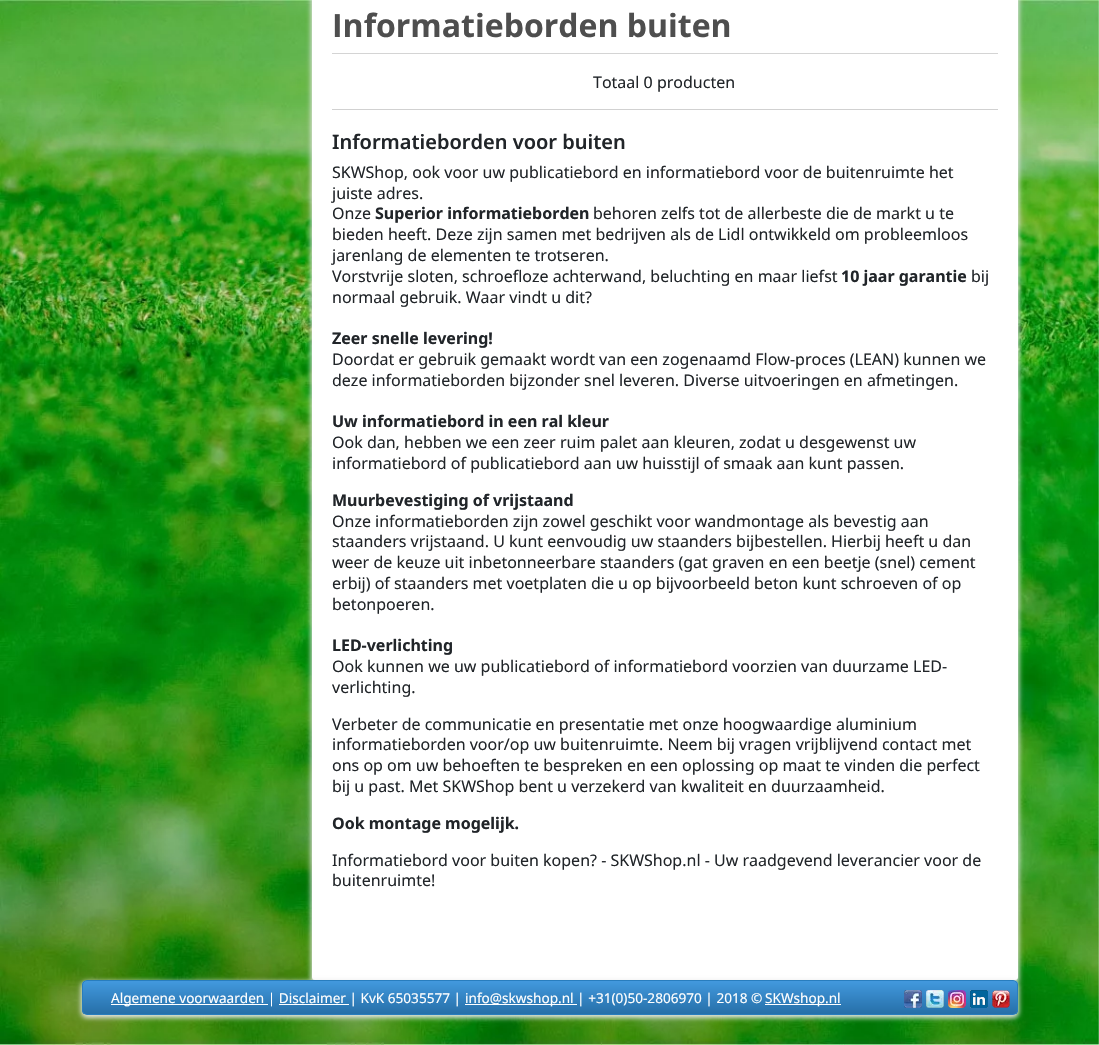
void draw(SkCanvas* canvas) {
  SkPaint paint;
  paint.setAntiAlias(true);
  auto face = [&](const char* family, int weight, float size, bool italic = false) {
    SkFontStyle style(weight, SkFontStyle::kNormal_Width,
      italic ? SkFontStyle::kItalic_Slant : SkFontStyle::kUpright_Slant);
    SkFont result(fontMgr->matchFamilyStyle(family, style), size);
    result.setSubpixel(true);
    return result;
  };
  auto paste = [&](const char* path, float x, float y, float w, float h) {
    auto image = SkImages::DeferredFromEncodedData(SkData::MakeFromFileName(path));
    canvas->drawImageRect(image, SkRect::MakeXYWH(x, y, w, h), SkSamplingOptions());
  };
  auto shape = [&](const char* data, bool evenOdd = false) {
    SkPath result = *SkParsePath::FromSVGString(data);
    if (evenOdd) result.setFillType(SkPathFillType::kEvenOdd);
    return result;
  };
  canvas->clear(0xffffffff);
  paste("img/1.png", 0, 0, 1099, 1045);
  paint.setColor(0xffe5e5e5);
  paint.setMaskFilter(SkMaskFilter::MakeBlur(kNormal_SkBlurStyle, 2.5f));
  canvas->drawRoundRect(SkRect::MakeXYWH(311, -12, 708, 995), 4, 4, paint);
  paint.setMaskFilter(nullptr);
  paint.setColor(0xffffffff);
  canvas->drawRoundRect(SkRect::MakeXYWH(312, -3, 706, 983), 3, 3, paint);
  paint.setColor(0xffd4d4d4);
  canvas->drawRect(SkRect::MakeXYWH(332, 53, 666, 1), paint);
  paint.setColor(0xffd1d1d1);
  canvas->drawRect(SkRect::MakeXYWH(332, 109, 666, 1), paint);
  paint.setColor(0xffe5e5e5);
  paint.setMaskFilter(SkMaskFilter::MakeBlur(kNormal_SkBlurStyle, 2.5f));
  canvas->drawRoundRect(SkRect::MakeXYWH(81, 981, 938, 37), 6, 6, paint);
  paint.setMaskFilter(nullptr);
  canvas->save();
  canvas->clipPath(shape("M87 980H1013C1016 980 1018 982 1018 985V1010C1018 1013 1016 1015 1013 1015H87C84 1015 82 1013 82 1010V985C82 982 84 980 87 980Z"), true);
  {
    const SkColor colors[] = {0xff4299de, 0xff266fa8};
    const float stops[] = {0, 1};
    const SkPoint ends[] = {{550, 981}, {550, 1014}};
    paint.setShader(SkGradientShader::MakeLinear(ends, colors, stops, 2, SkTileMode::kClamp));
    paint.setAlpha(255);
  }
  canvas->drawRect(SkRect::MakeXYWH(82, 981, 936, 33), paint);
  canvas->restore();
  paint.setStroke(true);
  paint.setStrokeWidth(1);
  paint.setShader(nullptr);
  paint.setColor(0xff287dbe);
  canvas->drawRoundRect(SkRect::MakeXYWH(82.5f, 980.5f, 935, 34), 4.5f, 4.5f, paint);
  paint.setStroke(false);
  {
    const struct { float x, y, w, h; SkColor color; } items[] = {
      {111, 1004, 157, 1, 0xffffffff},
      {465, 1004, 112, 1, 0xffffffff},
      {765, 1004, 76, 1, 0xffffffff},
      {279, 1004, 70, 1, 0xffffffff},
    };
    for (auto [x, y, w, h, color] : items) {
      paint.setColor(color);
      canvas->drawRect(SkRect::MakeXYWH(x, y, w, h), paint);
    }
  }
  paste("img/2.png", 904, 990, 18, 18);
  paste("img/3.png", 926, 990, 18, 18);
  paste("img/4.png", 948, 990, 18, 18);
  paste("img/5.png", 970, 990, 18, 18);
  paste("img/6.png", 992, 990, 18, 18);
  auto f0 = face("Open Sans", 700, 32);
  paint.setColor(0xff4e4e4e);
  canvas->drawString("Informatieborden buiten", 332, 37, f0, paint);
  auto f1 = face("Noto Sans", 400, 16);
  paint.setColor(0xff212529);
  canvas->drawString("Totaal 0 producten", 593, 88, f1, paint);
  auto f2 = face("Noto Sans", 600, 20);
  canvas->drawString("Informatieborden voor buiten", 332, 149, f2, paint);
  {
    const struct { const char* s; float x, y; } items[] = {
      {"SKWShop, ook voor uw publicatiebord en informatiebord voor de buitenruimte het", 332, 178},
      {"juiste adres.", 332, 199},
      {"Onze", 332, 219},
    };
    for (auto [s, x, y] : items) {
      canvas->drawString(s, x, y, f1, paint);
    }
  }
  auto f3 = face("Noto Sans", 700, 16);
  canvas->drawString("Superior informatieborden", 375, 219, f3, paint);
  {
    const struct { const char* s; float x, y; } items[] = {
      {"behoren zelfs tot de allerbeste die de markt u te", 593, 219},
      {"bieden heeft. Deze zijn samen met bedrijven als de Lidl ontwikkeld om probleemloos", 332, 240},
      {"jarenlang de elementen te trotseren.", 332, 261},
      {"Vorstvrije sloten, schroefloze achterwand, beluchting en maar liefst", 332, 282},
    };
    for (auto [s, x, y] : items) {
      canvas->drawString(s, x, y, f1, paint);
    }
  }
  canvas->drawString("10 jaar garantie", 841, 282, f3, paint);
  canvas->drawString("bij", 971, 282, f1, paint);
  canvas->drawString("normaal gebruik. Waar vindt u dit?", 332, 303, f1, paint);
  canvas->drawString("Zeer snelle levering!", 332, 344, f3, paint);
  canvas->drawString("Doordat er gebruik gemaakt wordt van een zogenaamd Flow-proces (LEAN) kunnen we", 332, 365, f1, paint);
  canvas->drawString("deze informatieborden bijzonder snel leveren. Diverse uitvoeringen en afmetingen.", 332, 386, f1, paint);
  canvas->drawString("Uw informatiebord in een ral kleur", 332, 427, f3, paint);
  canvas->drawString("Ook dan, hebben we een zeer ruim palet aan kleuren, zodat u desgewenst uw", 332, 448, f1, paint);
  canvas->drawString("informatiebord of publicatiebord aan uw huisstijl of smaak aan kunt passen.", 332, 469, f1, paint);
  canvas->drawString("Muurbevestiging of vrijstaand", 332, 506, f3, paint);
  {
    const struct { const char* s; float x, y; } items[] = {
      {"Onze informatieborden zijn zowel geschikt voor wandmontage als bevestig aan", 332, 527},
      {"staanders vrijstaand. U kunt eenvoudig uw staanders bijbestellen. Hierbij heeft u dan", 332, 547},
      {"weer de keuze uit inbetonneerbare staanders (gat graven en een beetje (snel) cement", 332, 568},
      {"erbij) of staanders met voetplaten die u op bijvoorbeeld beton kunt schroeven of op", 332, 589},
      {"betonpoeren.", 332, 610},
    };
    for (auto [s, x, y] : items) {
      canvas->drawString(s, x, y, f1, paint);
    }
  }
  canvas->drawString("LED-verlichting", 332, 651, f3, paint);
  {
    const struct { const char* s; float x, y; } items[] = {
      {"Ook kunnen we uw publicatiebord of informatiebord voorzien van duurzame LED-", 332, 672},
      {"verlichting.", 332, 693},
      {"Verbeter de communicatie en presentatie met onze hoogwaardige aluminium", 332, 730},
      {"informatieborden voor/op uw buitenruimte. Neem bij vragen vrijblijvend contact met", 332, 750},
      {"ons op om uw behoeften te bespreken en een oplossing op maat te vinden die perfect", 332, 771},
      {"bij u past. Met SKWShop bent u verzekerd van kwaliteit en duurzaamheid.", 332, 792},
    };
    for (auto [s, x, y] : items) {
      canvas->drawString(s, x, y, f1, paint);
    }
  }
  canvas->drawString("Ook montage mogelijk.", 332, 829, f3, paint);
  canvas->drawString("Informatiebord voor buiten kopen? - SKWShop.nl - Uw raadgevend leverancier voor de", 332, 866, f1, paint);
  canvas->drawString("buitenruimte!", 332, 886, f1, paint);
  auto f4 = face("Noto Sans", 400, 13.6f);
  paint.setColor(0xffffffff);
  {
    const struct { const char* s; float x, y; } items[] = {
      {"Algemene voorwaarden | Disclaimer | KvK 65035577 |", 111, 1003},
      {"info@skwshop.nl | +31(0)50-2806970 | 2018 ©", 465, 1003},
      {"SKWshop.nl", 765, 1003},
    };
    for (auto [s, x, y] : items) {
      canvas->drawString(s, x, y, f4, paint);
    }
  }
}
